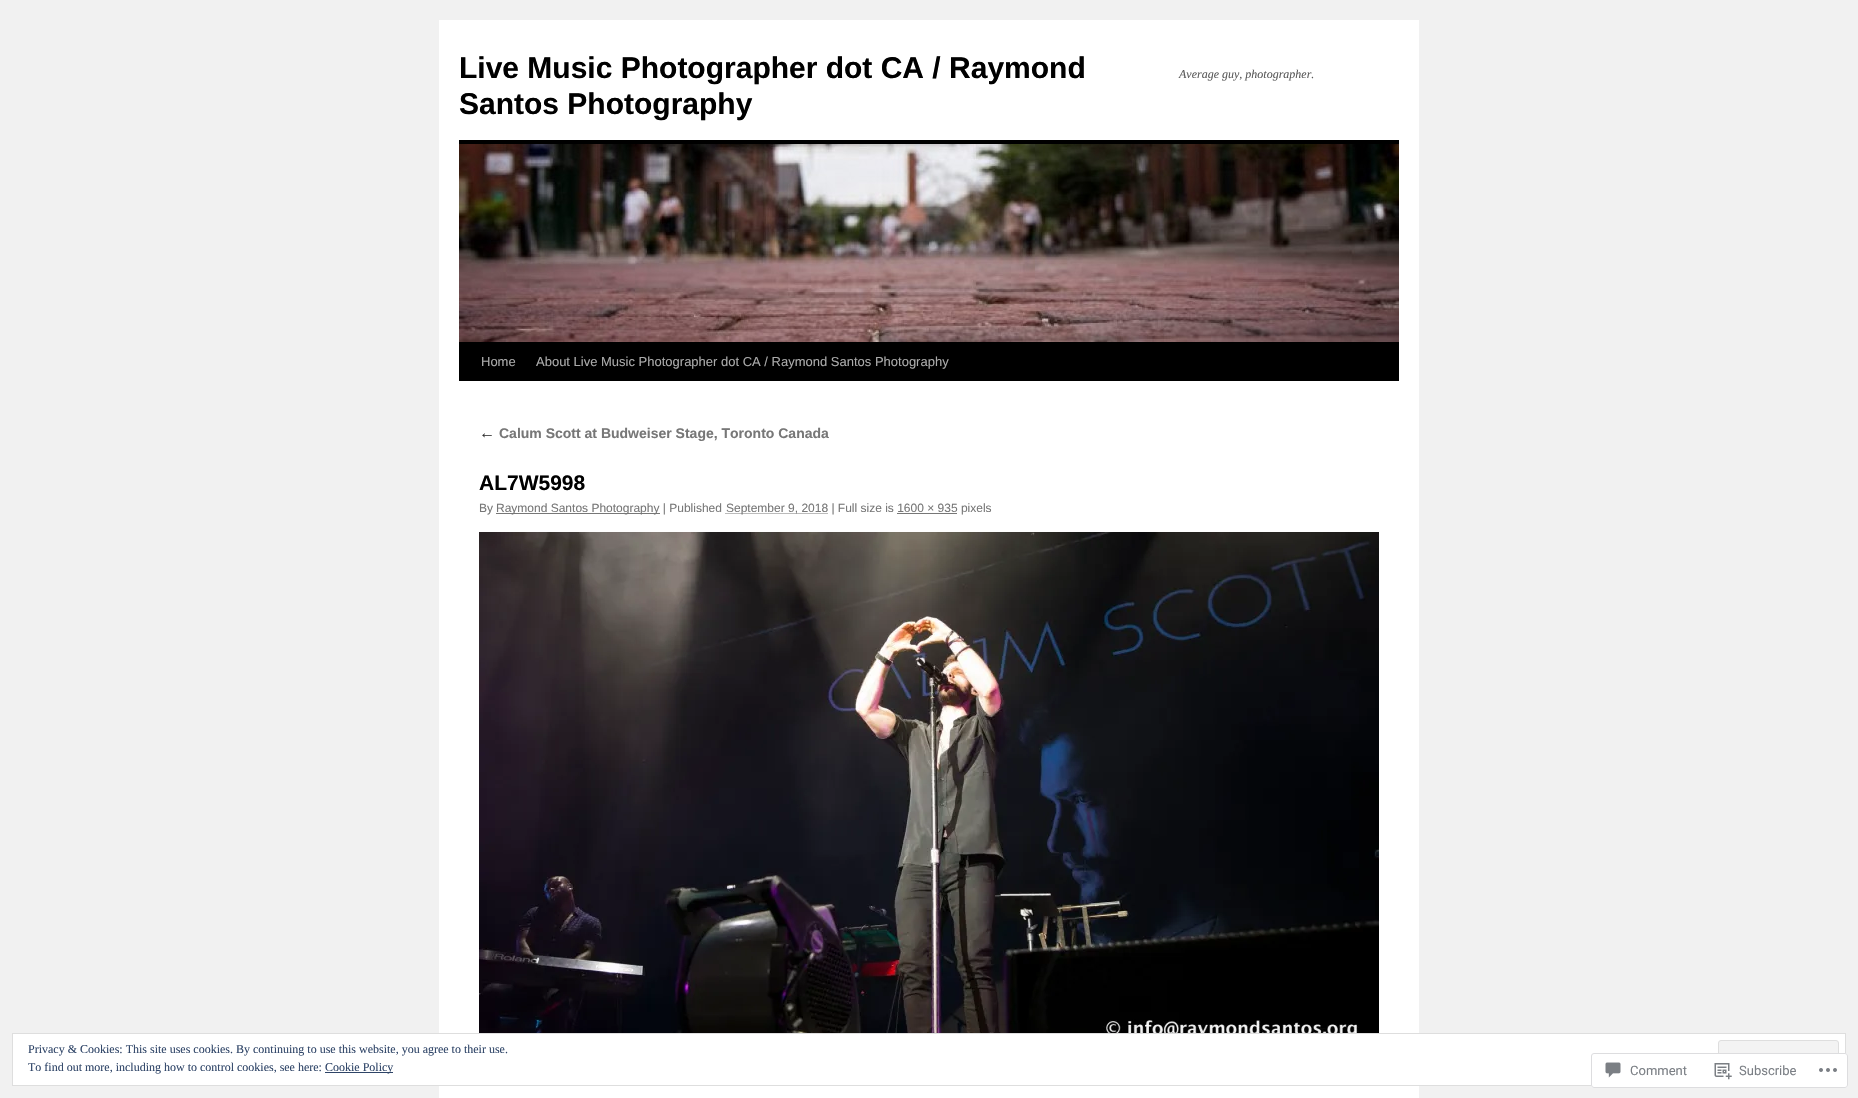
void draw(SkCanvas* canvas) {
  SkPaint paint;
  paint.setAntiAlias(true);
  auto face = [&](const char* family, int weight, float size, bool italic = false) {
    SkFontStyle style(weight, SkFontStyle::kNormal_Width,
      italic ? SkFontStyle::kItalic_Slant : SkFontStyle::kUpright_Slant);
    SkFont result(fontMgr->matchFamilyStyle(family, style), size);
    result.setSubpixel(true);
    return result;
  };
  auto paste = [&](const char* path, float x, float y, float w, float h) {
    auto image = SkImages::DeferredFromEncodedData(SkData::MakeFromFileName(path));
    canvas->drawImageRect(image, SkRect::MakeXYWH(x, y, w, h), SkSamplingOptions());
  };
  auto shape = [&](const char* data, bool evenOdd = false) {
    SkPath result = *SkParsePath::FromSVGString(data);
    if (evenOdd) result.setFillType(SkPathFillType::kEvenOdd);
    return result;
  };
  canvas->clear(0xfff1f1f1);
  {
    const struct { float x, y, w, h; SkColor color; } items[] = {
      {439, 20, 980, 1078, 0xffffffff},
      {459, 140, 940, 4, 0xff000000},
      {459, 342, 940, 39, 0xff000000},
    };
    for (auto [x, y, w, h, color] : items) {
      paint.setColor(color);
      canvas->drawRect(SkRect::MakeXYWH(x, y, w, h), paint);
    }
  }
  paste("img/1.png", 459, 144, 940, 198);
  paint.setColor(0xff777777);
  canvas->drawRect(SkRect::MakeXYWH(496, 513, 164, 1), paint);
  paint.setStroke(true);
  paint.setStrokeWidth(1);
  paint.setPathEffect(SkDashPathEffect::Make({{1, 1}}, 0));
  canvas->drawPath(shape("M725.5 513.5H828"), paint);
  paint.setPathEffect(nullptr);
  paint.setStroke(false);
  canvas->drawRect(SkRect::MakeXYWH(897, 513, 60, 1), paint);
  paste("img/2.png", 479, 532, 900, 501);
  paint.setColor(0xffffffff);
  canvas->drawRect(SkRect::MakeXYWH(12.5f, 1033.5f, 1833, 52), paint);
  paint.setStroke(true);
  paint.setColor(0xffdedede);
  canvas->drawRect(SkRect::MakeXYWH(12.5f, 1033.5f, 1833, 52), paint);
  paint.setStroke(false);
  paint.setColor(0xfff3f3f3);
  canvas->drawRoundRect(SkRect::MakeXYWH(1718.5f, 1040.5f, 120, 38), 2.5f, 2.5f, paint);
  paint.setStroke(true);
  paint.setColor(0xffdedede);
  canvas->drawRoundRect(SkRect::MakeXYWH(1718.5f, 1040.5f, 120, 38), 2.5f, 2.5f, paint);
  paint.setStroke(false);
  paint.setColor(0xff2e4467);
  canvas->drawRect(SkRect::MakeXYWH(325, 1072, 68, 1), paint);
  paint.setColor(0xfaffffff);
  canvas->drawRoundRect(SkRect::MakeXYWH(1591, 1053, 257, 35), 3, 3, paint);
  paint.setStroke(true);
  paint.setColor(0xfadcdcde);
  canvas->drawRoundRect(SkRect::MakeXYWH(1591.5f, 1053.5f, 256, 34), 2.5f, 2.5f, paint);
  paste("img/3.png", 1605, 1062, 16, 16);
  paste("img/4.png", 1714, 1063, 18, 17);
  paste("img/5.png", 1819, 1068, 18, 4);
  auto f0 = face("Liberation Sans", 700, 30);
  paint.setStroke(false);
  paint.setColor(0xff000000);
  canvas->drawString("Live Music Photographer dot CA / Raymond", 459, 78, f0, paint);
  canvas->drawString("Santos Photography", 459, 114, f0, paint);
  auto f1 = face("Liberation Serif", 400, 12, true);
  paint.setColor(0xff595959);
  canvas->drawString("Average guy, photographer.", 1179, 78, f1, paint);
  auto f2 = face("Liberation Sans", 400, 13);
  paint.setColor(0xffaaaaaa);
  canvas->drawString("Home", 481, 366, f2, paint);
  canvas->drawString("About Live Music Photographer dot CA / Raymond Santos Photography", 536, 366, f2, paint);
  auto f3 = face("Liberation Serif", 400, 16, true);
  paint.setColor(0xff333333);
  canvas->drawString("←", 479, 438, f3, paint);
  auto f4 = face("Liberation Sans", 700, 14);
  paint.setColor(0xff777777);
  canvas->drawString("Calum Scott at Budweiser Stage, Toronto Canada", 499, 438, f4, paint);
  auto f5 = face("Liberation Sans", 700, 21);
  paint.setColor(0xff000000);
  canvas->drawString("AL7W5998", 479, 490, f5, paint);
  auto f6 = face("Liberation Sans", 400, 12);
  paint.setColor(0xff777777);
  {
    const struct { const char* s; float x, y; } items[] = {
      {"By", 479, 512},
      {"Raymond Santos Photography | Published", 496, 512},
      {"September 9, 2018 | Full size is 1600 × 935 pixels", 726, 512},
    };
    for (auto [s, x, y] : items) {
      canvas->drawString(s, x, y, f6, paint);
    }
  }
  auto f7 = face("Liberation Serif", 400, 12);
  paint.setColor(0xff2e4467);
  {
    const struct { const char* s; float x, y; } items[] = {
      {"Privacy & Cookies: This site uses cookies. By continuing to use this website, you agree to their use.", 28, 1053},
      {"To find out more, including how to control cookies, see here:", 28, 1071},
      {"Cookie Policy", 325, 1071},
    };
    for (auto [s, x, y] : items) {
      canvas->drawString(s, x, y, f7, paint);
    }
  }
  auto f8 = face("Roboto", 400, 13);
  paint.setColor(0xff7b7f85);
  canvas->drawString("Comment", 1630, 1075, f8, paint);
  canvas->drawString("Subscribe", 1739, 1075, f8, paint);
}
